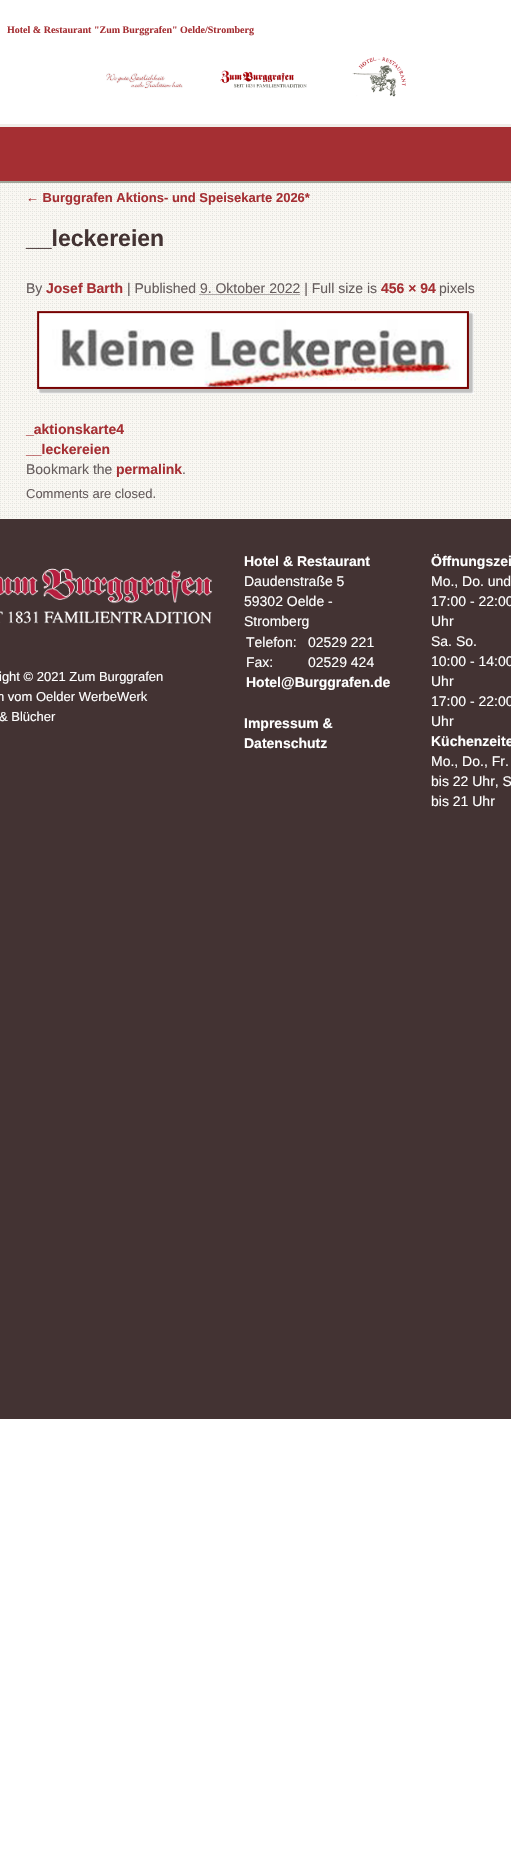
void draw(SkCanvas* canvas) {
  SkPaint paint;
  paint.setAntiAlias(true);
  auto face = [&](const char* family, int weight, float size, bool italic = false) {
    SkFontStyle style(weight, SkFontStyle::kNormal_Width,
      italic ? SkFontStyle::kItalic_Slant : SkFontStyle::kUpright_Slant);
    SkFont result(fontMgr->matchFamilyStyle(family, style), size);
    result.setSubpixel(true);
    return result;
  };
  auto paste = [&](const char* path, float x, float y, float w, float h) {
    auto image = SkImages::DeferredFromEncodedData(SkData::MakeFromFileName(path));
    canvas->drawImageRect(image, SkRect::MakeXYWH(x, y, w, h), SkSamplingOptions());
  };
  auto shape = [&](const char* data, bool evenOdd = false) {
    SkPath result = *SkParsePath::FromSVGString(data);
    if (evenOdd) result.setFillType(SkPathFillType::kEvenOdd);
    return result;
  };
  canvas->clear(0xffffffff);
  paint.setColor(0xfff1eeea);
  canvas->drawRect(SkRect::MakeXYWH(0, 124, 511, 3), paint);
  paste("img/1.png", 106, 57, 300, 40);
  paint.setColor(0xffa52f33);
  canvas->drawRect(SkRect::MakeXYWH(0, 127, 511, 54), paint);
  paint.setColor(0xffa0a397);
  canvas->drawRect(SkRect::MakeXYWH(0, 181, 511, 2), paint);
  paste("img/2.png", 0, 183, 511, 336);
  paint.setStroke(true);
  paint.setStrokeWidth(1);
  paint.setColor(0xff665d5d);
  paint.setPathEffect(SkDashPathEffect::Make({{1, 1}}, 0));
  canvas->drawPath(shape("M199.5 294.5H300"), paint);
  paint.setPathEffect(nullptr);
  paste("img/3.png", 37, 311, 437, 83);
  paint.setStroke(false);
  paint.setColor(0xff433333);
  canvas->drawRect(SkRect::MakeXYWH(0, 519, 511, 900), paint);
  paste("img/4.png", 0, 568, 213, 56);
  auto f0 = face("Liberation Serif", 700, 10);
  paint.setColor(0xffa52f33);
  canvas->drawString("Hotel & Restaurant \"Zum Burggrafen\" Oelde/Stromberg", 7, 33, f0, paint);
  auto f1 = face("Liberation Sans", 700, 13);
  canvas->drawString("← Burggrafen Aktions- und Speisekarte 2026*", 26, 202, f1, paint);
  auto f2 = face("Liberation Sans", 700, 23);
  paint.setColor(0xff433333);
  canvas->drawString("__leckereien", 26, 246, f2, paint);
  auto f3 = face("Liberation Sans", 400, 14);
  paint.setColor(0xff665d5d);
  canvas->drawString("By", 26, 293, f3, paint);
  auto f4 = face("Liberation Sans", 700, 14);
  paint.setColor(0xffa52f33);
  canvas->drawString("Josef Barth", 46, 293, f4, paint);
  paint.setColor(0xff665d5d);
  canvas->drawString("| Published 9. Oktober 2022 | Full size is", 127, 293, f3, paint);
  paint.setColor(0xffa52f33);
  canvas->drawString("456 × 94", 381, 293, f4, paint);
  paint.setColor(0xff665d5d);
  canvas->drawString("pixels", 439, 293, f3, paint);
  paint.setColor(0xffa52f33);
  canvas->drawString("_aktionskarte4", 26, 434, f4, paint);
  canvas->drawString("__leckereien", 26, 454, f4, paint);
  paint.setColor(0xff665d5d);
  canvas->drawString("Bookmark the", 26, 474, f3, paint);
  paint.setColor(0xffa52f33);
  canvas->drawString("permalink", 116, 474, f4, paint);
  paint.setColor(0xff665d5d);
  canvas->drawString(".", 182, 474, f3, paint);
  auto f5 = face("Liberation Sans", 400, 13);
  canvas->drawString("Comments are closed.", 26, 498, f5, paint);
  paint.setColor(0xffffffff);
  {
    const struct { const char* s; float x, y; } items[] = {
      {"ight © 2021 Zum Burggrafen", -1, 681},
      {"n vom Oelder WerbeWerk", -3, 701},
      {"& Blücher", -1, 721},
    };
    for (auto [s, x, y] : items) {
      canvas->drawString(s, x, y, f5, paint);
    }
  }
  canvas->drawString("Hotel & Restaurant", 244, 566, f4, paint);
  {
    const struct { const char* s; float x, y; } items[] = {
      {"Daudenstraße 5", 244, 586},
      {"59302 Oelde -", 244, 606},
      {"Stromberg", 244, 626},
      {"Telefon:", 246, 647},
      {"02529 221", 308, 647},
      {"Fax:", 246, 667},
      {"02529 424", 308, 667},
    };
    for (auto [s, x, y] : items) {
      canvas->drawString(s, x, y, f3, paint);
    }
  }
  {
    const struct { const char* s; float x, y; } items[] = {
      {"Hotel@Burggrafen.de", 246, 687},
      {"Impressum &", 244, 728},
      {"Datenschutz", 244, 748},
      {"Öffnungszei", 431, 566},
    };
    for (auto [s, x, y] : items) {
      canvas->drawString(s, x, y, f4, paint);
    }
  }
  {
    const struct { const char* s; float x, y; } items[] = {
      {"Mo., Do. und", 431, 586},
      {"17:00 - 22:00", 431, 606},
      {"Uhr", 431, 626},
      {"Sa. So.", 431, 646},
      {"10:00 - 14:00", 431, 666},
      {"Uhr", 431, 686},
      {"17:00 - 22:00", 431, 706},
      {"Uhr", 431, 726},
    };
    for (auto [s, x, y] : items) {
      canvas->drawString(s, x, y, f3, paint);
    }
  }
  canvas->drawString("Küchenzeite", 431, 746, f4, paint);
  {
    const struct { const char* s; float x, y; } items[] = {
      {"Mo., Do., Fr.", 431, 766},
      {"bis 22 Uhr, S", 431, 786},
      {"bis 21 Uhr", 431, 806},
    };
    for (auto [s, x, y] : items) {
      canvas->drawString(s, x, y, f3, paint);
    }
  }
}
